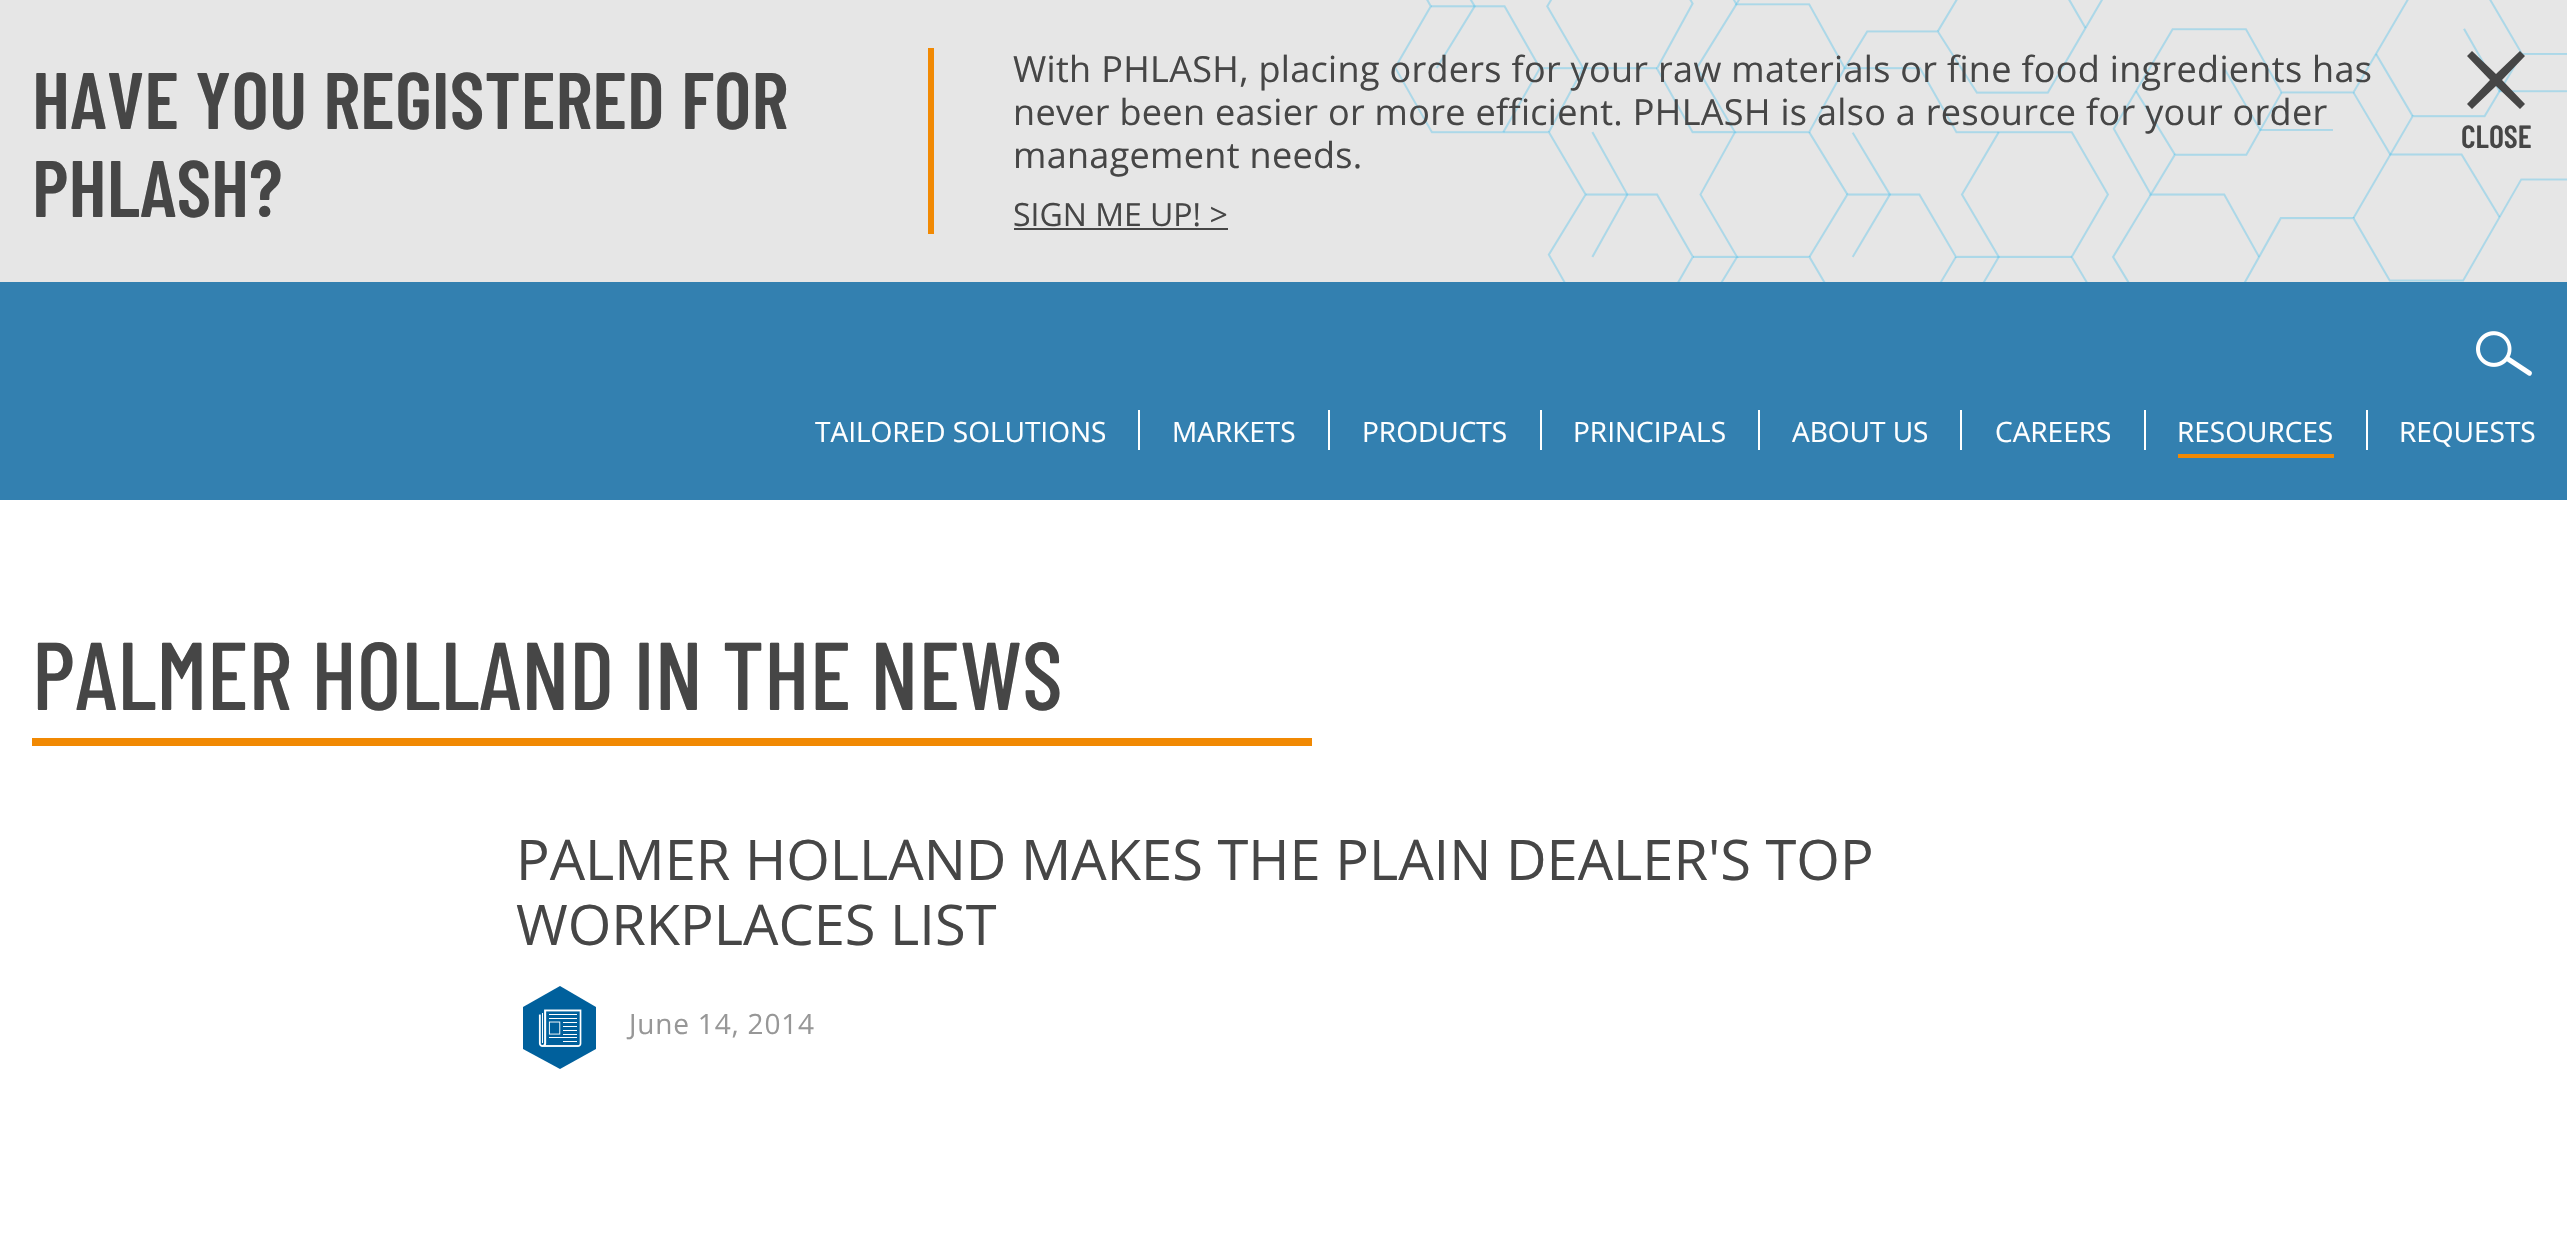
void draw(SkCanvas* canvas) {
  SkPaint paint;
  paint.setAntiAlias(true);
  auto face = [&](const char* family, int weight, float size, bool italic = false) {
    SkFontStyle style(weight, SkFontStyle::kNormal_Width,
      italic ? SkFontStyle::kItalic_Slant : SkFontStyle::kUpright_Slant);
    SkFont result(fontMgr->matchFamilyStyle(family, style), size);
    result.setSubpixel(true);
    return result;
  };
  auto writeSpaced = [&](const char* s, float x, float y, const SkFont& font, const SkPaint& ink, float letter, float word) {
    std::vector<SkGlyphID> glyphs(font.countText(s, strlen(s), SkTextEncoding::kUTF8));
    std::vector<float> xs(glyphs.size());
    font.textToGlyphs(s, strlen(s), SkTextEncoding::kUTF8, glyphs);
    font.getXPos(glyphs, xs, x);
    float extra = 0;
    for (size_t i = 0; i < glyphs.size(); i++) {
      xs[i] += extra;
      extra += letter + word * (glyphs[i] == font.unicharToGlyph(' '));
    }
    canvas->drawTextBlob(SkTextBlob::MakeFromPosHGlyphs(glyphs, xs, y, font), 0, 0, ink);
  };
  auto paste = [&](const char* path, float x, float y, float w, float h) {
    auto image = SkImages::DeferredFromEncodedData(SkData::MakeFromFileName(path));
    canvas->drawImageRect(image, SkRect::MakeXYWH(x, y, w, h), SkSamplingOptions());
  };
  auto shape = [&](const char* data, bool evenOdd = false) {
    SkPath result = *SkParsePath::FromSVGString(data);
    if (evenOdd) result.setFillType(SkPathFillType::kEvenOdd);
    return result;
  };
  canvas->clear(0xffffffff);
  paint.setColor(0xffe6e6e6);
  canvas->drawRect(SkRect::MakeXYWH(0, 0, 2567, 282), paint);
  paste("img/1.png", 1394, 0, 1173, 282);
  paint.setColor(0xfff18903);
  canvas->drawRect(SkRect::MakeXYWH(928, 48, 6, 186), paint);
  paint.setColor(0xff464646);
  canvas->drawRect(SkRect::MakeXYWH(1014, 228, 214, 2), paint);
  canvas->drawPath(shape("M2525 56L2520 51L2496 74L2472 51L2467 56L2490 80L2467 104L2472 109L2496 86L2520 109L2525 104L2502 80Z"), paint);
  paint.setColor(0xff3380b0);
  canvas->drawRect(SkRect::MakeXYWH(0, 282, 2567, 218), paint);
  paste("img/2.png", 2476, 331, 56, 45);
  {
    const struct { float x, y, w, h; SkColor color; } items[] = {
      {1138, 410, 2, 40, 0xffffffff},
      {1328, 410, 2, 40, 0xffffffff},
      {1540, 410, 2, 40, 0xffffffff},
      {1758, 410, 2, 40, 0xffffffff},
      {1960, 410, 2, 40, 0xffffffff},
      {2144, 410, 2, 40, 0xffffffff},
      {2178, 454, 156, 4, 0xfff18903},
      {2366, 410, 2, 40, 0xffffffff},
      {32, 738, 1280, 8, 0xfff18903},
    };
    for (auto [x, y, w, h, color] : items) {
      paint.setColor(color);
      canvas->drawRect(SkRect::MakeXYWH(x, y, w, h), paint);
    }
  }
  paint.setColor(0xff00609c);
  canvas->drawPath(shape("M560 986L596 1007V1049L560 1069L523 1049V1007Z"), paint);
  paste("img/3.png", 538, 1009, 44, 38);
  auto f0 = face("Barlow Condensed", 600, 80);
  paint.setColor(0xff464646);
  canvas->drawString("HAVE YOU REGISTERED FOR", 32, 129, f0, paint);
  canvas->drawString("PHLASH?", 32, 217, f0, paint);
  auto f1 = face("Open Sans", 400, 36);
  {
    const struct { const char* s; float x, y; } items[] = {
      {"With PHLASH, placing orders for your raw materials or fine food ingredients has", 1013, 82},
      {"never been easier or more efficient. PHLASH is also a resource for your order", 1013, 125},
      {"management needs.", 1013, 168},
    };
    for (auto [s, x, y] : items) {
      writeSpaced(s, x, y, f1, paint, 0.32f, 0);
    }
  }
  auto f2 = face("Open Sans", 400, 32);
  canvas->drawString("SIGN ME UP! >", 1013, 226, f2, paint);
  auto f3 = face("Barlow Condensed", 600, 32);
  canvas->drawString("CLOSE", 2461, 148, f3, paint);
  auto f4 = face("Open Sans", 400, 28);
  paint.setColor(0xffffffff);
  {
    const struct { const char* s; float x, y; } items[] = {
      {"TAILORED SOLUTIONS", 815, 442},
      {"MARKETS", 1172, 442},
      {"PRODUCTS", 1362, 442},
      {"PRINCIPALS", 1573, 442},
      {"ABOUT US", 1792, 442},
      {"CAREERS", 1995, 442},
      {"RESOURCES", 2177, 442},
      {"REQUESTS", 2399, 442},
    };
    for (auto [s, x, y] : items) {
      canvas->drawString(s, x, y, f4, paint);
    }
  }
  auto f5 = face("Barlow Condensed", 500, 96);
  paint.setColor(0xff464646);
  canvas->drawString("PALMER HOLLAND IN THE NEWS", 32, 710, f5, paint);
  auto f6 = face("Open Sans", 400, 56);
  canvas->drawString("PALMER HOLLAND MAKES THE PLAIN DEALER'S TOP", 516, 880, f6, paint);
  canvas->drawString("WORKPLACES LIST", 516, 945, f6, paint);
  paint.setColor(0xff979797);
  writeSpaced("June 14, 2014", 629, 1034, f4, paint, 0.8f, 0);
}
